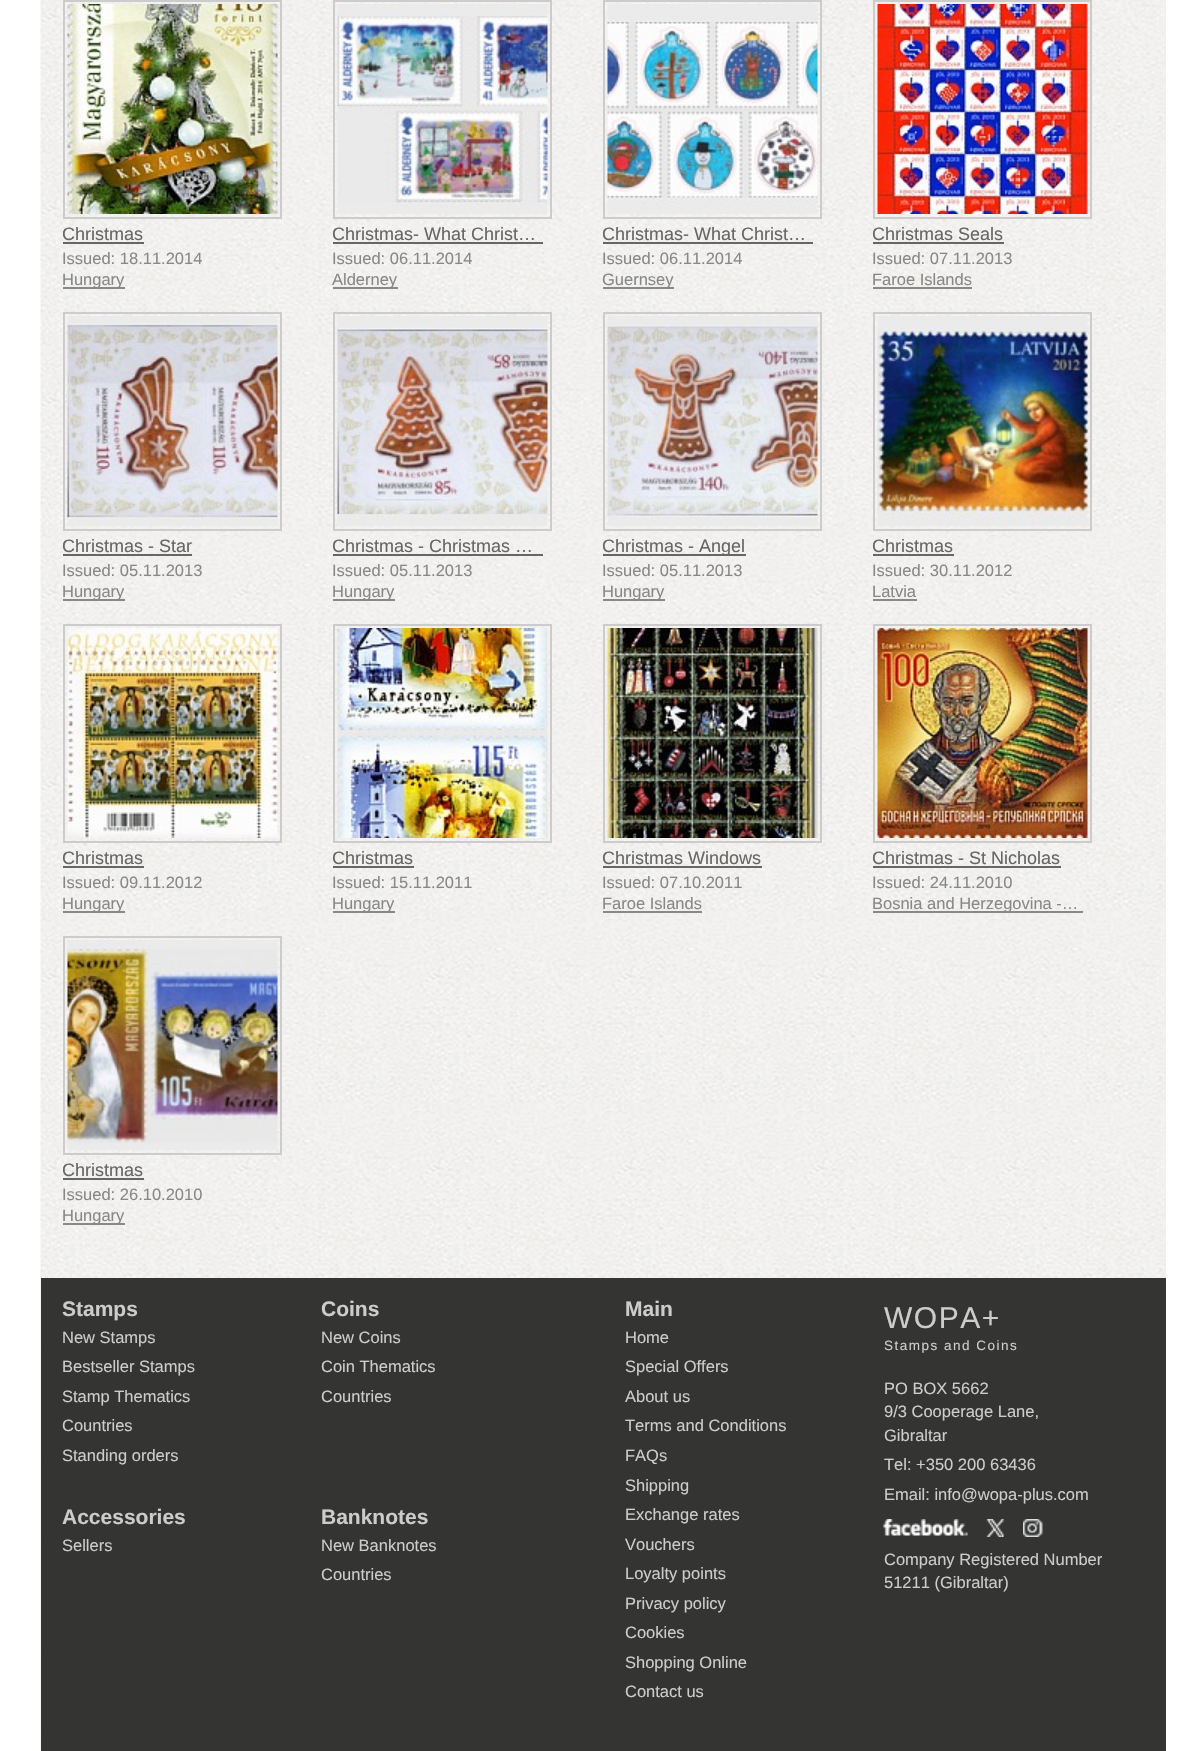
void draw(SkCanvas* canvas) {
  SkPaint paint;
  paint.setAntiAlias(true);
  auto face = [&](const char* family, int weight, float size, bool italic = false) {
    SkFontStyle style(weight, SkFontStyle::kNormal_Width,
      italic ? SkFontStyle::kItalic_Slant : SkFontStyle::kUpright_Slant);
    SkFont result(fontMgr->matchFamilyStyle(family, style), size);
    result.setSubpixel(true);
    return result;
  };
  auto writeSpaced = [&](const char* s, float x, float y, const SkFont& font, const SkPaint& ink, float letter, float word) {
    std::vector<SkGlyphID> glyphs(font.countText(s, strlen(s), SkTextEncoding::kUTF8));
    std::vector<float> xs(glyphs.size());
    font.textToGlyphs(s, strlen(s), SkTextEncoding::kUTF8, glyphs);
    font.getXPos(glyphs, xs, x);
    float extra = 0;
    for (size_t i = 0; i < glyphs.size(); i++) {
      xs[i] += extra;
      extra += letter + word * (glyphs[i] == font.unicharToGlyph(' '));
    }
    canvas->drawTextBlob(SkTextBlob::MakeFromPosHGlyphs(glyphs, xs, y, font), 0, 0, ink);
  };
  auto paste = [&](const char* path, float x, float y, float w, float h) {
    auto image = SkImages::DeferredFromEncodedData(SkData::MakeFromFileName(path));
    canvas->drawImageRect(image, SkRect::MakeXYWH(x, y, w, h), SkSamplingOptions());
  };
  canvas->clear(0xffffffff);
  paint.setColor(0xfff1efee);
  canvas->drawRect(SkRect::MakeXYWH(1165, 0, 1, 1278), paint);
  paste("img/1.png", 40, 0, 1125, 1751);
  paint.setStroke(true);
  paint.setStrokeWidth(2);
  paint.setColor(0xffcccccc);
  canvas->drawRect(SkRect::MakeXYWH(64, 1, 217, 217), paint);
  paste("img/2.png", 67, 4, 211, 210);
  paint.setStroke(false);
  paint.setColor(0xff666666);
  canvas->drawRect(SkRect::MakeXYWH(63, 242, 81, 2), paint);
  paint.setColor(0xff888888);
  canvas->drawRect(SkRect::MakeXYWH(63, 287, 62, 2), paint);
  paint.setStroke(true);
  paint.setColor(0xffcccccc);
  canvas->drawRect(SkRect::MakeXYWH(334, 1, 217, 217), paint);
  paste("img/3.png", 337, 4, 211, 210);
  paint.setStroke(false);
  paint.setColor(0xff666666);
  canvas->drawRect(SkRect::MakeXYWH(333, 242, 210, 2), paint);
  paint.setColor(0xff888888);
  canvas->drawRect(SkRect::MakeXYWH(333, 287, 65, 2), paint);
  paint.setStroke(true);
  paint.setColor(0xffcccccc);
  canvas->drawRect(SkRect::MakeXYWH(604, 1, 217, 217), paint);
  paste("img/4.png", 607, 4, 211, 210);
  paint.setStroke(false);
  paint.setColor(0xff666666);
  canvas->drawRect(SkRect::MakeXYWH(603, 242, 210, 2), paint);
  paint.setColor(0xff888888);
  canvas->drawRect(SkRect::MakeXYWH(603, 287, 71, 2), paint);
  paint.setStroke(true);
  paint.setColor(0xffcccccc);
  canvas->drawRect(SkRect::MakeXYWH(874, 1, 217, 217), paint);
  paste("img/5.png", 877, 4, 211, 210);
  paint.setStroke(false);
  paint.setColor(0xff666666);
  canvas->drawRect(SkRect::MakeXYWH(873, 242, 131, 2), paint);
  paint.setColor(0xff888888);
  canvas->drawRect(SkRect::MakeXYWH(873, 287, 99, 2), paint);
  paint.setStroke(true);
  paint.setColor(0xffcccccc);
  canvas->drawRect(SkRect::MakeXYWH(64, 313, 217, 217), paint);
  paste("img/6.png", 67, 316, 211, 210);
  paint.setStroke(false);
  paint.setColor(0xff666666);
  canvas->drawRect(SkRect::MakeXYWH(63, 554, 129, 2), paint);
  paint.setColor(0xff888888);
  canvas->drawRect(SkRect::MakeXYWH(63, 599, 62, 2), paint);
  paint.setStroke(true);
  paint.setColor(0xffcccccc);
  canvas->drawRect(SkRect::MakeXYWH(334, 313, 217, 217), paint);
  paste("img/7.png", 337, 316, 211, 210);
  paint.setStroke(false);
  paint.setColor(0xff666666);
  canvas->drawRect(SkRect::MakeXYWH(333, 554, 210, 2), paint);
  paint.setColor(0xff888888);
  canvas->drawRect(SkRect::MakeXYWH(333, 599, 62, 2), paint);
  paint.setStroke(true);
  paint.setColor(0xffcccccc);
  canvas->drawRect(SkRect::MakeXYWH(604, 313, 217, 217), paint);
  paste("img/8.png", 607, 316, 211, 210);
  paint.setStroke(false);
  paint.setColor(0xff666666);
  canvas->drawRect(SkRect::MakeXYWH(603, 554, 143, 2), paint);
  paint.setColor(0xff888888);
  canvas->drawRect(SkRect::MakeXYWH(603, 599, 62, 2), paint);
  paint.setStroke(true);
  paint.setColor(0xffcccccc);
  canvas->drawRect(SkRect::MakeXYWH(874, 313, 217, 217), paint);
  paste("img/9.png", 877, 316, 211, 210);
  paint.setStroke(false);
  paint.setColor(0xff666666);
  canvas->drawRect(SkRect::MakeXYWH(873, 554, 81, 2), paint);
  paint.setColor(0xff888888);
  canvas->drawRect(SkRect::MakeXYWH(873, 599, 44, 2), paint);
  paint.setStroke(true);
  paint.setColor(0xffcccccc);
  canvas->drawRect(SkRect::MakeXYWH(64, 625, 217, 217), paint);
  paste("img/10.png", 67, 628, 211, 210);
  paint.setStroke(false);
  paint.setColor(0xff666666);
  canvas->drawRect(SkRect::MakeXYWH(63, 866, 81, 2), paint);
  paint.setColor(0xff888888);
  canvas->drawRect(SkRect::MakeXYWH(63, 911, 62, 2), paint);
  paint.setStroke(true);
  paint.setColor(0xffcccccc);
  canvas->drawRect(SkRect::MakeXYWH(334, 625, 217, 217), paint);
  paste("img/11.png", 337, 628, 211, 210);
  paint.setStroke(false);
  paint.setColor(0xff666666);
  canvas->drawRect(SkRect::MakeXYWH(333, 866, 81, 2), paint);
  paint.setColor(0xff888888);
  canvas->drawRect(SkRect::MakeXYWH(333, 911, 62, 2), paint);
  paint.setStroke(true);
  paint.setColor(0xffcccccc);
  canvas->drawRect(SkRect::MakeXYWH(604, 625, 217, 217), paint);
  paste("img/12.png", 607, 628, 211, 210);
  paint.setStroke(false);
  paint.setColor(0xff666666);
  canvas->drawRect(SkRect::MakeXYWH(603, 866, 159, 2), paint);
  paint.setColor(0xff888888);
  canvas->drawRect(SkRect::MakeXYWH(603, 911, 99, 2), paint);
  paint.setStroke(true);
  paint.setColor(0xffcccccc);
  canvas->drawRect(SkRect::MakeXYWH(874, 625, 217, 217), paint);
  paste("img/13.png", 877, 628, 211, 210);
  paint.setStroke(false);
  paint.setColor(0xff666666);
  canvas->drawRect(SkRect::MakeXYWH(873, 866, 188, 2), paint);
  paint.setColor(0xff888888);
  canvas->drawRect(SkRect::MakeXYWH(873, 911, 210, 2), paint);
  paint.setStroke(true);
  paint.setColor(0xffcccccc);
  canvas->drawRect(SkRect::MakeXYWH(64, 937, 217, 217), paint);
  paste("img/14.png", 67, 940, 211, 210);
  paint.setStroke(false);
  {
    const struct { float x, y, w, h; SkColor color; } items[] = {
      {63, 1178, 81, 2, 0xff666666},
      {63, 1223, 62, 2, 0xff888888},
      {41, 1278, 1125, 473, 0xff343433},
    };
    for (auto [x, y, w, h, color] : items) {
      paint.setColor(color);
      canvas->drawRect(SkRect::MakeXYWH(x, y, w, h), paint);
    }
  }
  paste("img/15.png", 883, 1519, 85, 17);
  paste("img/16.png", 986, 1519, 18, 18);
  paste("img/17.png", 1023, 1519, 20, 18);
  auto f0 = face("Liberation Sans", 400, 18);
  paint.setColor(0xff666666);
  canvas->drawString("Christmas", 62, 240, f0, paint);
  auto f1 = face("Liberation Sans", 400, 16.5f);
  paint.setColor(0xff888888);
  canvas->drawString("Issued: 18.11.2014", 62, 264, f1, paint);
  canvas->drawString("Hungary", 62, 285, f1, paint);
  paint.setColor(0xff666666);
  canvas->drawString("Christmas- What Christ…", 332, 240, f0, paint);
  paint.setColor(0xff888888);
  canvas->drawString("Issued: 06.11.2014", 332, 264, f1, paint);
  canvas->drawString("Alderney", 332, 285, f1, paint);
  paint.setColor(0xff666666);
  canvas->drawString("Christmas- What Christ…", 602, 240, f0, paint);
  paint.setColor(0xff888888);
  canvas->drawString("Issued: 06.11.2014", 602, 264, f1, paint);
  canvas->drawString("Guernsey", 602, 285, f1, paint);
  paint.setColor(0xff666666);
  canvas->drawString("Christmas Seals", 872, 240, f0, paint);
  paint.setColor(0xff888888);
  canvas->drawString("Issued: 07.11.2013", 872, 264, f1, paint);
  canvas->drawString("Faroe Islands", 872, 285, f1, paint);
  paint.setColor(0xff666666);
  canvas->drawString("Christmas - Star", 62, 552, f0, paint);
  paint.setColor(0xff888888);
  canvas->drawString("Issued: 05.11.2013", 62, 576, f1, paint);
  canvas->drawString("Hungary", 62, 597, f1, paint);
  paint.setColor(0xff666666);
  canvas->drawString("Christmas - Christmas …", 332, 552, f0, paint);
  paint.setColor(0xff888888);
  canvas->drawString("Issued: 05.11.2013", 332, 576, f1, paint);
  canvas->drawString("Hungary", 332, 597, f1, paint);
  paint.setColor(0xff666666);
  canvas->drawString("Christmas - Angel", 602, 552, f0, paint);
  paint.setColor(0xff888888);
  canvas->drawString("Issued: 05.11.2013", 602, 576, f1, paint);
  canvas->drawString("Hungary", 602, 597, f1, paint);
  paint.setColor(0xff666666);
  canvas->drawString("Christmas", 872, 552, f0, paint);
  paint.setColor(0xff888888);
  canvas->drawString("Issued: 30.11.2012", 872, 576, f1, paint);
  canvas->drawString("Latvia", 872, 597, f1, paint);
  paint.setColor(0xff666666);
  canvas->drawString("Christmas", 62, 864, f0, paint);
  paint.setColor(0xff888888);
  canvas->drawString("Issued: 09.11.2012", 62, 888, f1, paint);
  canvas->drawString("Hungary", 62, 909, f1, paint);
  paint.setColor(0xff666666);
  canvas->drawString("Christmas", 332, 864, f0, paint);
  paint.setColor(0xff888888);
  canvas->drawString("Issued: 15.11.2011", 332, 888, f1, paint);
  canvas->drawString("Hungary", 332, 909, f1, paint);
  paint.setColor(0xff666666);
  canvas->drawString("Christmas Windows", 602, 864, f0, paint);
  paint.setColor(0xff888888);
  canvas->drawString("Issued: 07.10.2011", 602, 888, f1, paint);
  canvas->drawString("Faroe Islands", 602, 909, f1, paint);
  paint.setColor(0xff666666);
  canvas->drawString("Christmas - St Nicholas", 872, 864, f0, paint);
  paint.setColor(0xff888888);
  canvas->drawString("Issued: 24.11.2010", 872, 888, f1, paint);
  canvas->drawString("Bosnia and Herzegovina -…", 872, 909, f1, paint);
  paint.setColor(0xff666666);
  canvas->drawString("Christmas", 62, 1176, f0, paint);
  paint.setColor(0xff888888);
  canvas->drawString("Issued: 26.10.2010", 62, 1200, f1, paint);
  canvas->drawString("Hungary", 62, 1221, f1, paint);
  auto f2 = face("Liberation Sans", 700, 21);
  paint.setColor(0xffcccccc);
  canvas->drawString("Stamps", 62, 1316, f2, paint);
  {
    const struct { const char* s; float x, y; } items[] = {
      {"New Stamps", 62, 1343},
      {"Bestseller Stamps", 62, 1372},
      {"Stamp Thematics", 62, 1402},
      {"Countries", 62, 1431},
      {"Standing orders", 62, 1461},
    };
    for (auto [s, x, y] : items) {
      canvas->drawString(s, x, y, f1, paint);
    }
  }
  canvas->drawString("Coins", 321, 1316, f2, paint);
  {
    const struct { const char* s; float x, y; } items[] = {
      {"New Coins", 321, 1343},
      {"Coin Thematics", 321, 1372},
      {"Countries", 321, 1402},
    };
    for (auto [s, x, y] : items) {
      canvas->drawString(s, x, y, f1, paint);
    }
  }
  canvas->drawString("Accessories", 62, 1524, f2, paint);
  canvas->drawString("Sellers", 62, 1551, f1, paint);
  canvas->drawString("Banknotes", 321, 1524, f2, paint);
  canvas->drawString("New Banknotes", 321, 1551, f1, paint);
  canvas->drawString("Countries", 321, 1580, f1, paint);
  canvas->drawString("Main", 625, 1316, f2, paint);
  {
    const struct { const char* s; float x, y; } items[] = {
      {"Home", 625, 1343},
      {"Special Offers", 625, 1372},
      {"About us", 625, 1402},
      {"Terms and Conditions", 625, 1431},
      {"FAQs", 625, 1461},
      {"Shipping", 625, 1491},
      {"Exchange rates", 625, 1520},
      {"Vouchers", 625, 1550},
      {"Loyalty points", 625, 1579},
      {"Privacy policy", 625, 1609},
      {"Cookies", 625, 1638},
      {"Shopping Online", 625, 1668},
      {"Contact us", 625, 1697},
    };
    for (auto [s, x, y] : items) {
      canvas->drawString(s, x, y, f1, paint);
    }
  }
  auto f3 = face("Liberation Sans", 400, 30);
  writeSpaced("WOPA+", 884, 1328, f3, paint, 1.5f, 0);
  auto f4 = face("Liberation Sans", 400, 13.5f);
  writeSpaced("Stamps and Coins", 884, 1350, f4, paint, 1.5f, 0);
  {
    const struct { const char* s; float x, y; } items[] = {
      {"PO BOX 5662", 884, 1394},
      {"9/3 Cooperage Lane,", 884, 1417},
      {"Gibraltar", 884, 1441},
      {"Tel: +350 200 63436", 884, 1470},
      {"Email: info@wopa-plus.com", 884, 1500},
      {"Company Registered Number", 884, 1565},
      {"51211 (Gibraltar)", 884, 1588},
    };
    for (auto [s, x, y] : items) {
      canvas->drawString(s, x, y, f1, paint);
    }
  }
}
